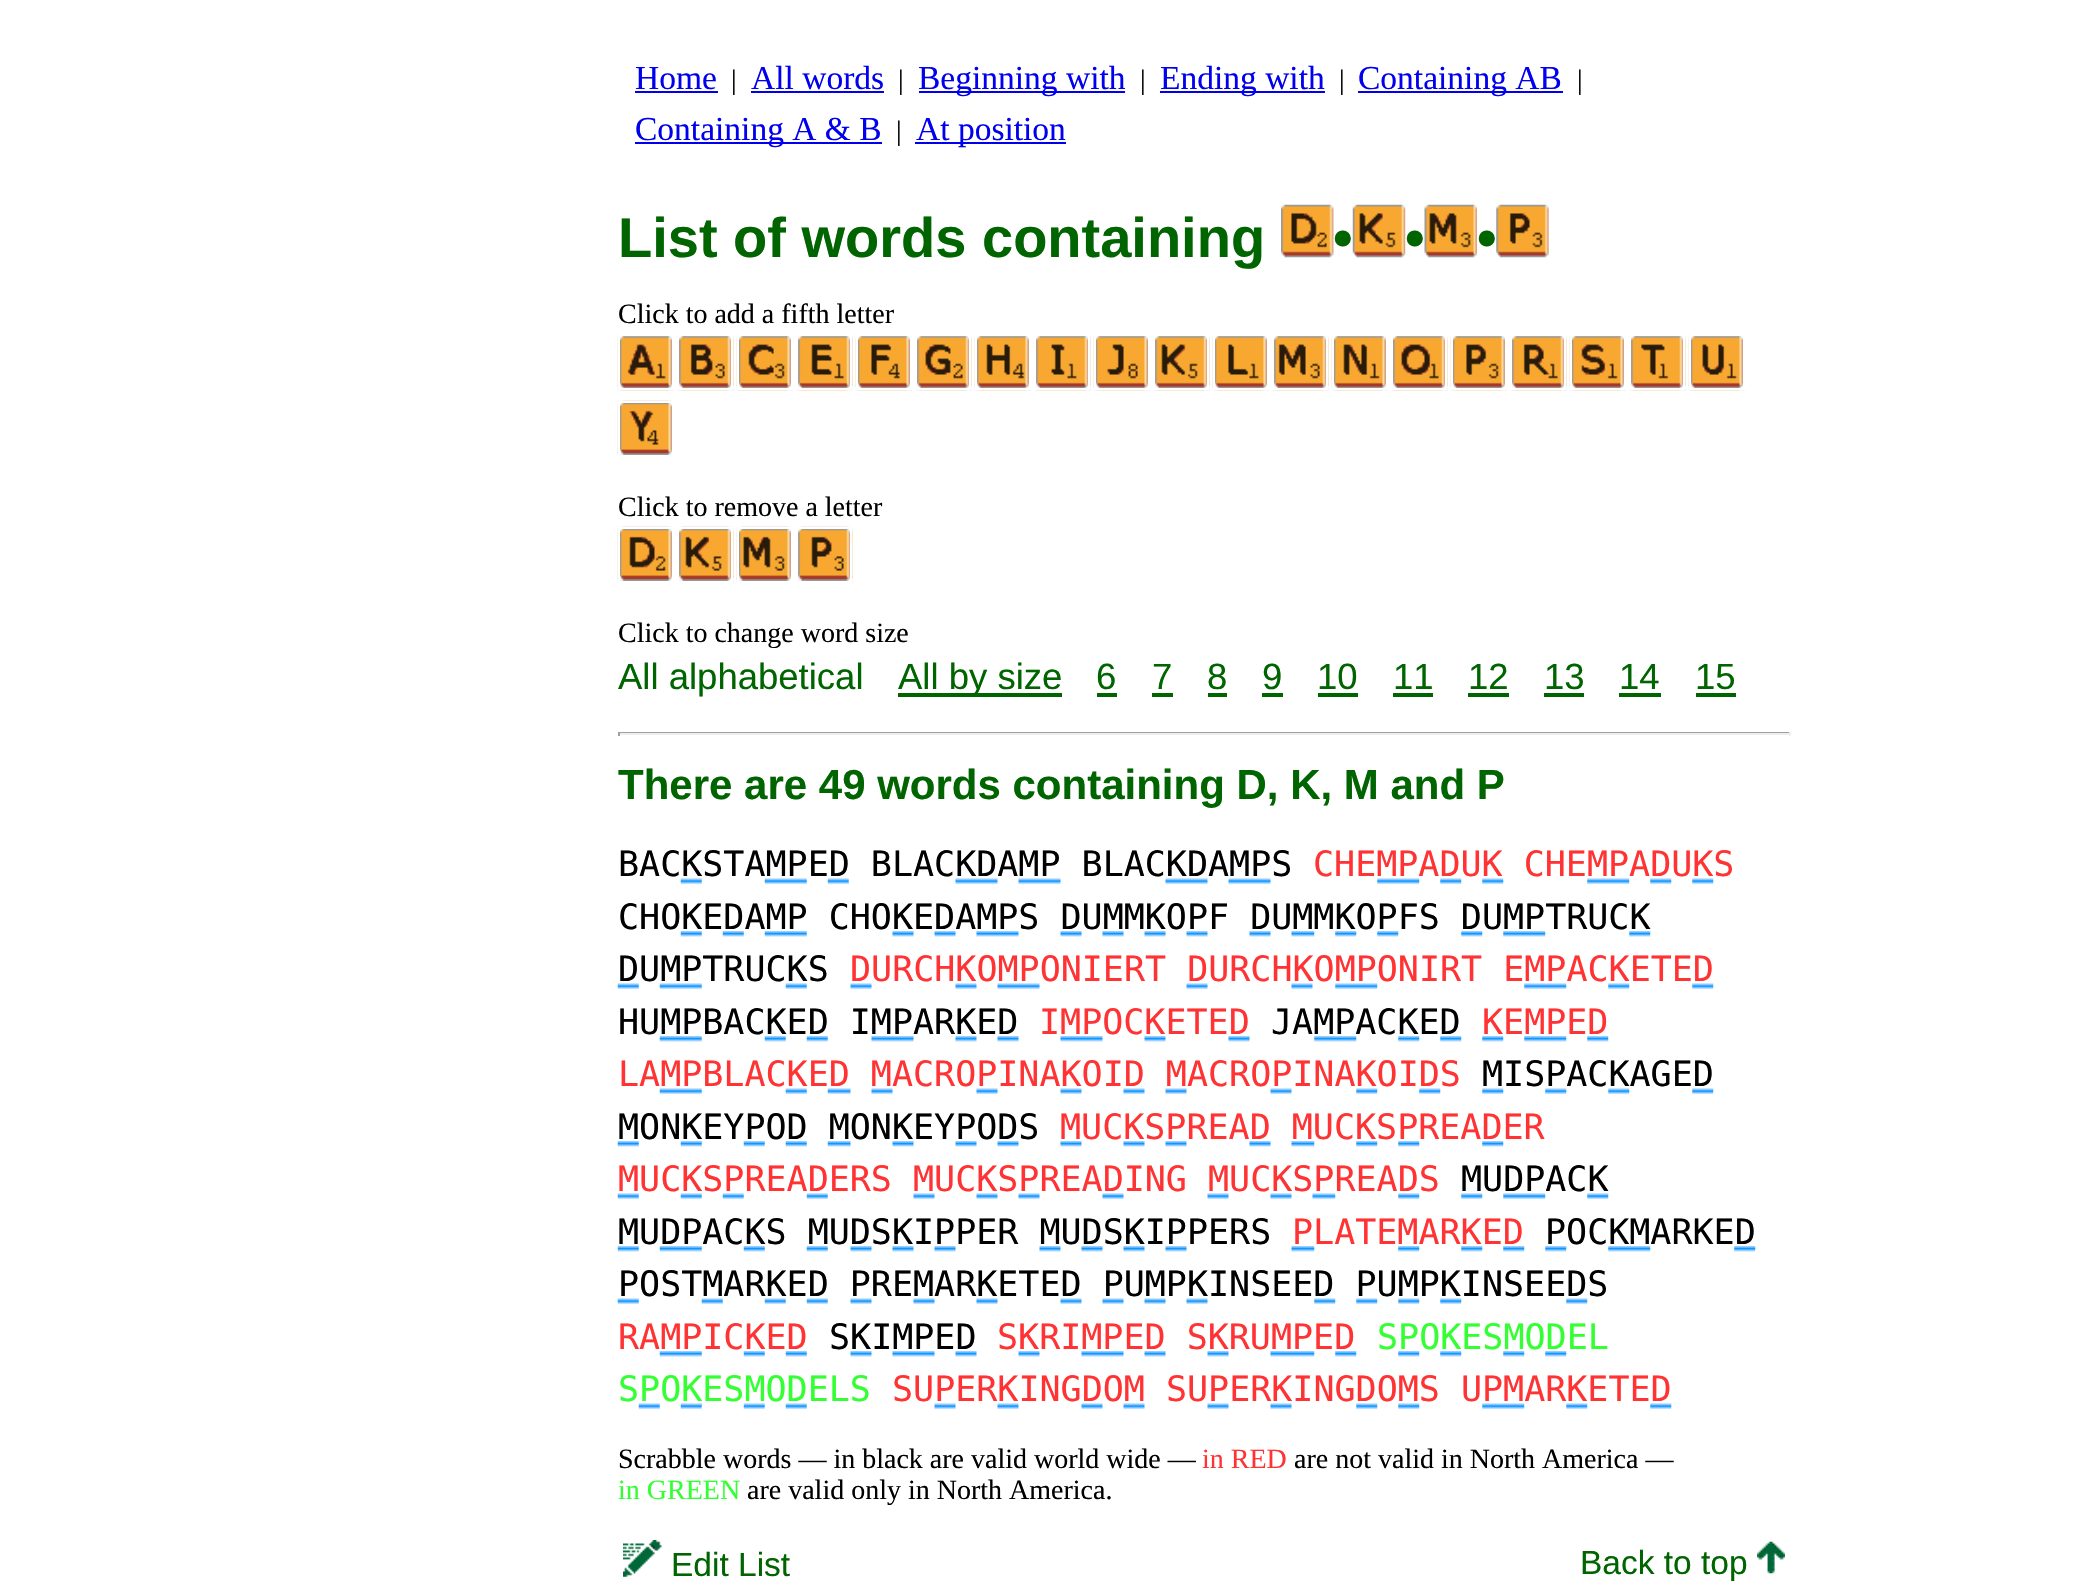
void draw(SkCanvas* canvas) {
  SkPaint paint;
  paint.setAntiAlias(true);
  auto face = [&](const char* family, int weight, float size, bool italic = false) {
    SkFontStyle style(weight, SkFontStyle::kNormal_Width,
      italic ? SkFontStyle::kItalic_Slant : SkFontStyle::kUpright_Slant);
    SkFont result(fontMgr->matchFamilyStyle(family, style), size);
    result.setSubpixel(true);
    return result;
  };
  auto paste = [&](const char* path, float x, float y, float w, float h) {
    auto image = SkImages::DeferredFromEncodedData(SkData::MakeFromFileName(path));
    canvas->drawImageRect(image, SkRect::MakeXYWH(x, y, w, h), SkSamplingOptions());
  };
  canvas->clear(0xffffffff);
  {
    const struct { float x, y, w, h; SkColor color; } items[] = {
      {635, 91, 83, 2, 0xff0000ee},
      {751, 91, 133, 2, 0xff0000ee},
      {919, 91, 206, 2, 0xff0000ee},
      {1160, 91, 165, 2, 0xff0000ee},
      {1358, 91, 205, 2, 0xff0000ee},
      {635, 142, 247, 2, 0xff0000ee},
      {915, 142, 151, 2, 0xff0000ee},
    };
    for (auto [x, y, w, h, color] : items) {
      paint.setColor(color);
      canvas->drawRect(SkRect::MakeXYWH(x, y, w, h), paint);
    }
  }
  paste("img/1.png", 1281, 204, 53, 54);
  paste("img/2.png", 1352, 204, 54, 54);
  paste("img/3.png", 1424, 204, 53, 54);
  paste("img/4.png", 1496, 204, 53, 54);
  paste("img/5.png", 617, 334, 57, 57);
  paint.setStroke(true);
  paint.setStrokeWidth(2);
  paint.setColor(0xffffffff);
  canvas->drawRect(SkRect::MakeXYWH(619, 335, 54, 54), paint);
  paste("img/6.png", 677, 334, 57, 57);
  canvas->drawRect(SkRect::MakeXYWH(678, 335, 54, 54), paint);
  paste("img/7.png", 736, 334, 57, 57);
  canvas->drawRect(SkRect::MakeXYWH(738, 335, 54, 54), paint);
  paste("img/8.png", 796, 334, 57, 57);
  canvas->drawRect(SkRect::MakeXYWH(797, 335, 54, 54), paint);
  paste("img/9.png", 855, 334, 57, 57);
  canvas->drawRect(SkRect::MakeXYWH(857, 335, 54, 54), paint);
  paste("img/10.png", 915, 334, 57, 57);
  canvas->drawRect(SkRect::MakeXYWH(916, 335, 54, 54), paint);
  paste("img/11.png", 974, 334, 57, 57);
  canvas->drawRect(SkRect::MakeXYWH(976, 335, 54, 54), paint);
  paste("img/12.png", 1034, 334, 57, 57);
  canvas->drawRect(SkRect::MakeXYWH(1035, 335, 54, 54), paint);
  paste("img/13.png", 1093, 334, 57, 57);
  canvas->drawRect(SkRect::MakeXYWH(1095, 335, 54, 54), paint);
  paste("img/14.png", 1153, 334, 57, 57);
  canvas->drawRect(SkRect::MakeXYWH(1154, 335, 54, 54), paint);
  paste("img/15.png", 1212, 334, 57, 57);
  canvas->drawRect(SkRect::MakeXYWH(1214, 335, 54, 54), paint);
  paste("img/16.png", 1272, 334, 57, 57);
  canvas->drawRect(SkRect::MakeXYWH(1273, 335, 54, 54), paint);
  paste("img/17.png", 1331, 334, 57, 57);
  canvas->drawRect(SkRect::MakeXYWH(1333, 335, 54, 54), paint);
  paste("img/18.png", 1391, 334, 57, 57);
  canvas->drawRect(SkRect::MakeXYWH(1392, 335, 54, 54), paint);
  paste("img/19.png", 1450, 334, 57, 57);
  canvas->drawRect(SkRect::MakeXYWH(1452, 335, 54, 54), paint);
  paste("img/20.png", 1510, 334, 57, 57);
  canvas->drawRect(SkRect::MakeXYWH(1511, 335, 54, 54), paint);
  paste("img/21.png", 1569, 334, 57, 57);
  canvas->drawRect(SkRect::MakeXYWH(1571, 335, 54, 54), paint);
  paste("img/22.png", 1629, 334, 57, 57);
  canvas->drawRect(SkRect::MakeXYWH(1630, 335, 54, 54), paint);
  paste("img/23.png", 1688, 334, 57, 57);
  canvas->drawRect(SkRect::MakeXYWH(1690, 335, 54, 54), paint);
  paste("img/24.png", 617, 400, 57, 57);
  canvas->drawRect(SkRect::MakeXYWH(619, 402, 54, 54), paint);
  paste("img/25.png", 617, 526, 57, 57);
  canvas->drawRect(SkRect::MakeXYWH(619, 528, 54, 54), paint);
  paste("img/26.png", 677, 526, 57, 57);
  canvas->drawRect(SkRect::MakeXYWH(678, 528, 54, 54), paint);
  paste("img/27.png", 736, 526, 57, 57);
  canvas->drawRect(SkRect::MakeXYWH(738, 528, 54, 54), paint);
  paste("img/28.png", 796, 526, 57, 57);
  canvas->drawRect(SkRect::MakeXYWH(797, 528, 54, 54), paint);
  paint.setStroke(false);
  {
    const struct { float x, y, w, h; SkColor color; } items[] = {
      {898, 693, 164, 4, 0xff006400},
      {1097, 693, 20, 4, 0xff006400},
      {1152, 693, 21, 4, 0xff006400},
      {1208, 693, 19, 4, 0xff006400},
      {1262, 693, 21, 4, 0xff006400},
      {1318, 693, 40, 4, 0xff006400},
      {1393, 693, 40, 4, 0xff006400},
      {1468, 693, 41, 4, 0xff006400},
      {1544, 693, 40, 4, 0xff006400},
      {1619, 693, 42, 4, 0xff006400},
      {1696, 693, 40, 4, 0xff006400},
      {618, 732, 1172, 1, 0xff9f9f9f},
      {1789, 732, 2, 4, 0xffeeeeee},
      {618, 733, 1172, 2, 0xffeeeeee},
      {618, 732, 2, 4, 0xff9f9f9f},
    };
    for (auto [x, y, w, h, color] : items) {
      paint.setColor(color);
      canvas->drawRect(SkRect::MakeXYWH(x, y, w, h), paint);
    }
  }
  paste("img/29.png", 680, 878, 22, 7);
  paste("img/30.png", 764, 878, 43, 7);
  paste("img/29.png", 827, 878, 22, 7);
  paste("img/31.png", 955, 878, 43, 7);
  paste("img/31.png", 1018, 878, 43, 7);
  paste("img/31.png", 1165, 878, 43, 7);
  paste("img/31.png", 1228, 878, 43, 7);
  paste("img/32.png", 1377, 878, 43, 7);
  paste("img/33.png", 1440, 878, 22, 7);
  paste("img/33.png", 1482, 878, 22, 7);
  paste("img/32.png", 1587, 878, 43, 7);
  paste("img/33.png", 1650, 878, 22, 7);
  paste("img/33.png", 1692, 878, 22, 7);
  paste("img/34.png", 680, 931, 22, 6);
  paste("img/34.png", 722, 931, 22, 6);
  paste("img/35.png", 764, 931, 43, 6);
  paste("img/36.png", 892, 931, 22, 6);
  paste("img/36.png", 934, 931, 22, 6);
  paste("img/37.png", 976, 931, 43, 6);
  paste("img/36.png", 1060, 931, 22, 6);
  paste("img/36.png", 1102, 931, 22, 6);
  paste("img/36.png", 1144, 931, 22, 6);
  paste("img/36.png", 1186, 931, 22, 6);
  paste("img/36.png", 1249, 931, 22, 6);
  paste("img/38.png", 1291, 931, 24, 6);
  paste("img/39.png", 1335, 931, 22, 6);
  paste("img/39.png", 1377, 931, 22, 6);
  paste("img/39.png", 1461, 931, 22, 6);
  paste("img/40.png", 1503, 931, 43, 6);
  paste("img/39.png", 1629, 931, 22, 6);
  paste("img/29.png", 617, 983, 22, 7);
  paste("img/30.png", 659, 983, 43, 7);
  paste("img/29.png", 785, 983, 22, 7);
  paste("img/41.png", 850, 983, 22, 7);
  paste("img/41.png", 955, 983, 22, 7);
  paste("img/31.png", 997, 983, 43, 7);
  paste("img/41.png", 1186, 983, 22, 7);
  paste("img/41.png", 1291, 983, 22, 7);
  paste("img/32.png", 1335, 983, 43, 7);
  paste("img/32.png", 1524, 983, 43, 7);
  paste("img/33.png", 1608, 983, 22, 7);
  paste("img/33.png", 1692, 983, 22, 7);
  paste("img/42.png", 659, 1036, 43, 6);
  paste("img/43.png", 764, 1036, 22, 6);
  paste("img/43.png", 806, 1036, 22, 6);
  paste("img/44.png", 871, 1036, 43, 6);
  paste("img/45.png", 955, 1036, 22, 6);
  paste("img/45.png", 997, 1036, 22, 6);
  paste("img/44.png", 1060, 1036, 43, 6);
  paste("img/45.png", 1144, 1036, 22, 6);
  paste("img/45.png", 1228, 1036, 22, 6);
  paste("img/46.png", 1314, 1036, 43, 6);
  paste("img/47.png", 1398, 1036, 22, 6);
  paste("img/47.png", 1440, 1036, 22, 6);
  paste("img/47.png", 1482, 1036, 22, 6);
  paste("img/46.png", 1524, 1036, 43, 6);
  paste("img/47.png", 1587, 1036, 22, 6);
  paste("img/30.png", 659, 1088, 43, 7);
  paste("img/29.png", 785, 1088, 22, 7);
  paste("img/48.png", 827, 1088, 24, 7);
  paste("img/41.png", 871, 1088, 22, 7);
  paste("img/41.png", 976, 1088, 22, 7);
  paste("img/41.png", 1060, 1088, 22, 7);
  paste("img/41.png", 1123, 1088, 22, 7);
  paste("img/41.png", 1165, 1088, 22, 7);
  paste("img/41.png", 1270, 1088, 22, 7);
  paste("img/33.png", 1356, 1088, 22, 7);
  paste("img/33.png", 1419, 1088, 22, 7);
  paste("img/33.png", 1482, 1088, 22, 7);
  paste("img/33.png", 1545, 1088, 22, 7);
  paste("img/33.png", 1608, 1088, 22, 7);
  paste("img/33.png", 1692, 1088, 22, 7);
  paste("img/43.png", 617, 1141, 22, 6);
  paste("img/43.png", 680, 1141, 22, 6);
  paste("img/43.png", 743, 1141, 22, 6);
  paste("img/43.png", 785, 1141, 22, 6);
  paste("img/49.png", 827, 1141, 24, 6);
  paste("img/45.png", 892, 1141, 22, 6);
  paste("img/45.png", 955, 1141, 22, 6);
  paste("img/45.png", 997, 1141, 22, 6);
  paste("img/45.png", 1060, 1141, 22, 6);
  paste("img/45.png", 1123, 1141, 22, 6);
  paste("img/45.png", 1165, 1141, 22, 6);
  paste("img/45.png", 1249, 1141, 22, 6);
  paste("img/50.png", 1291, 1141, 24, 6);
  paste("img/47.png", 1356, 1141, 22, 6);
  paste("img/47.png", 1398, 1141, 22, 6);
  paste("img/47.png", 1482, 1141, 22, 6);
  paste("img/29.png", 617, 1193, 22, 7);
  paste("img/29.png", 680, 1193, 22, 7);
  paste("img/29.png", 722, 1193, 22, 7);
  paste("img/29.png", 806, 1193, 22, 7);
  paste("img/41.png", 913, 1193, 22, 7);
  paste("img/41.png", 976, 1193, 22, 7);
  paste("img/41.png", 1018, 1193, 22, 7);
  paste("img/41.png", 1102, 1193, 22, 7);
  paste("img/41.png", 1207, 1193, 22, 7);
  paste("img/41.png", 1270, 1193, 22, 7);
  paste("img/51.png", 1312, 1193, 24, 7);
  paste("img/33.png", 1398, 1193, 22, 7);
  paste("img/33.png", 1461, 1193, 22, 7);
  paste("img/32.png", 1503, 1193, 43, 7);
  paste("img/33.png", 1587, 1193, 22, 7);
  paste("img/43.png", 617, 1246, 22, 6);
  paste("img/42.png", 659, 1246, 43, 6);
  paste("img/43.png", 743, 1246, 22, 6);
  paste("img/43.png", 806, 1246, 22, 6);
  paste("img/45.png", 850, 1246, 22, 6);
  paste("img/45.png", 892, 1246, 22, 6);
  paste("img/45.png", 934, 1246, 22, 6);
  paste("img/45.png", 1039, 1246, 22, 6);
  paste("img/45.png", 1081, 1246, 22, 6);
  paste("img/45.png", 1123, 1246, 22, 6);
  paste("img/45.png", 1165, 1246, 22, 6);
  paste("img/50.png", 1291, 1246, 24, 6);
  paste("img/47.png", 1398, 1246, 22, 6);
  paste("img/47.png", 1461, 1246, 22, 6);
  paste("img/47.png", 1503, 1246, 22, 6);
  paste("img/47.png", 1545, 1246, 22, 6);
  paste("img/46.png", 1608, 1246, 43, 6);
  paste("img/47.png", 1734, 1246, 22, 6);
  paste("img/29.png", 617, 1298, 22, 7);
  paste("img/29.png", 701, 1298, 22, 7);
  paste("img/29.png", 764, 1298, 22, 7);
  paste("img/29.png", 806, 1298, 22, 7);
  paste("img/41.png", 850, 1298, 22, 7);
  paste("img/41.png", 913, 1298, 22, 7);
  paste("img/41.png", 976, 1298, 22, 7);
  paste("img/41.png", 1060, 1298, 22, 7);
  paste("img/41.png", 1102, 1298, 22, 7);
  paste("img/41.png", 1144, 1298, 22, 7);
  paste("img/41.png", 1186, 1298, 22, 7);
  paste("img/33.png", 1314, 1298, 22, 7);
  paste("img/33.png", 1356, 1298, 22, 7);
  paste("img/33.png", 1398, 1298, 22, 7);
  paste("img/33.png", 1440, 1298, 22, 7);
  paste("img/33.png", 1566, 1298, 22, 7);
  paste("img/35.png", 659, 1351, 43, 6);
  paste("img/34.png", 743, 1351, 22, 6);
  paste("img/34.png", 785, 1351, 22, 6);
  paste("img/36.png", 850, 1351, 22, 6);
  paste("img/37.png", 892, 1351, 43, 6);
  paste("img/36.png", 955, 1351, 22, 6);
  paste("img/36.png", 1018, 1351, 22, 6);
  paste("img/37.png", 1081, 1351, 43, 6);
  paste("img/36.png", 1144, 1351, 22, 6);
  paste("img/36.png", 1207, 1351, 22, 6);
  paste("img/52.png", 1270, 1351, 45, 6);
  paste("img/39.png", 1335, 1351, 22, 6);
  paste("img/39.png", 1398, 1351, 22, 6);
  paste("img/39.png", 1440, 1351, 22, 6);
  paste("img/39.png", 1503, 1351, 22, 6);
  paste("img/39.png", 1545, 1351, 22, 6);
  paste("img/29.png", 638, 1403, 22, 7);
  paste("img/29.png", 680, 1403, 22, 7);
  paste("img/29.png", 743, 1403, 22, 7);
  paste("img/29.png", 785, 1403, 22, 7);
  paste("img/41.png", 934, 1403, 22, 7);
  paste("img/41.png", 997, 1403, 22, 7);
  paste("img/41.png", 1081, 1403, 22, 7);
  paste("img/41.png", 1123, 1403, 22, 7);
  paste("img/41.png", 1207, 1403, 22, 7);
  paste("img/41.png", 1270, 1403, 22, 7);
  paste("img/33.png", 1356, 1403, 22, 7);
  paste("img/33.png", 1398, 1403, 22, 7);
  paste("img/32.png", 1482, 1403, 43, 7);
  paste("img/33.png", 1566, 1403, 22, 7);
  paste("img/33.png", 1650, 1403, 22, 7);
  paste("img/53.png", 623, 1540, 39, 37);
  paste("img/54.png", 1757, 1541, 28, 33);
  auto f0 = face("Liberation Serif", 400, 33.5f);
  paint.setColor(0xff0000ee);
  canvas->drawString("Home", 635, 89, f0, paint);
  auto f1 = face("Liberation Serif", 400, 28);
  paint.setColor(0xff000000);
  canvas->drawString("|", 731, 89, f1, paint);
  paint.setColor(0xff0000ee);
  canvas->drawString("All words", 751, 89, f0, paint);
  paint.setColor(0xff000000);
  canvas->drawString("|", 898, 89, f1, paint);
  paint.setColor(0xff0000ee);
  canvas->drawString("Beginning with", 918, 89, f0, paint);
  paint.setColor(0xff000000);
  canvas->drawString("|", 1140, 89, f1, paint);
  paint.setColor(0xff0000ee);
  canvas->drawString("Ending with", 1160, 89, f0, paint);
  paint.setColor(0xff000000);
  canvas->drawString("|", 1339, 89, f1, paint);
  paint.setColor(0xff0000ee);
  canvas->drawString("Containing AB", 1358, 89, f0, paint);
  paint.setColor(0xff000000);
  canvas->drawString("|", 1577, 89, f1, paint);
  paint.setColor(0xff0000ee);
  canvas->drawString("Containing A & B", 635, 140, f0, paint);
  paint.setColor(0xff000000);
  canvas->drawString("|", 896, 140, f1, paint);
  paint.setColor(0xff0000ee);
  canvas->drawString("At position", 916, 140, f0, paint);
  auto f2 = face("Liberation Sans", 700, 56);
  paint.setColor(0xff006400);
  {
    const struct { const char* s; float x, y; } items[] = {
      {"List of words containing", 618, 257},
      {"•", 1333, 257},
      {"•", 1405, 257},
      {"•", 1477, 257},
    };
    for (auto [s, x, y] : items) {
      canvas->drawString(s, x, y, f2, paint);
    }
  }
  paint.setColor(0xff000000);
  {
    const struct { const char* s; float x, y; } items[] = {
      {"Click to add a fifth letter", 618, 323},
      {"Click to remove a letter", 618, 516},
      {"Click to change word size", 618, 642},
    };
    for (auto [s, x, y] : items) {
      canvas->drawString(s, x, y, f1, paint);
    }
  }
  auto f3 = face("Liberation Sans", 400, 36.5f);
  paint.setColor(0xff006400);
  {
    const struct { const char* s; float x, y; } items[] = {
      {"All alphabetical", 618, 689},
      {"All by size", 898, 689},
      {"6", 1096, 689},
      {"7", 1152, 689},
      {"8", 1207, 689},
      {"9", 1262, 689},
      {"10", 1317, 689},
      {"11", 1393, 689},
      {"12", 1468, 689},
      {"13", 1544, 689},
      {"14", 1619, 689},
      {"15", 1695, 689},
    };
    for (auto [s, x, y] : items) {
      canvas->drawString(s, x, y, f3, paint);
    }
  }
  auto f4 = face("Liberation Sans", 700, 42);
  canvas->drawString("There are 49 words containing D, K, M and P", 618, 799, f4, paint);
  auto f5 = face("DejaVu Sans Mono", 400, 35);
  paint.setColor(0xff000000);
  canvas->drawString("BACKSTAMPED BLACKDAMP BLACKDAMPS", 618, 876, f5, paint);
  paint.setColor(0xffff3333);
  canvas->drawString("CHEMPADUK CHEMPADUKS", 1313, 876, f5, paint);
  paint.setColor(0xff000000);
  canvas->drawString("CHOKEDAMP CHOKEDAMPS DUMMKOPF DUMMKOPFS DUMPTRUCK", 618, 929, f5, paint);
  canvas->drawString("DUMPTRUCKS", 618, 981, f5, paint);
  paint.setColor(0xffff3333);
  canvas->drawString("DURCHKOMPONIERT DURCHKOMPONIRT EMPACKETED", 850, 981, f5, paint);
  paint.setColor(0xff000000);
  canvas->drawString("HUMPBACKED IMPARKED", 618, 1034, f5, paint);
  paint.setColor(0xffff3333);
  canvas->drawString("IMPOCKETED", 1039, 1034, f5, paint);
  paint.setColor(0xff000000);
  canvas->drawString("JAMPACKED", 1271, 1034, f5, paint);
  paint.setColor(0xffff3333);
  canvas->drawString("KEMPED", 1482, 1034, f5, paint);
  canvas->drawString("LAMPBLACKED MACROPINAKOID MACROPINAKOIDS", 618, 1086, f5, paint);
  paint.setColor(0xff000000);
  canvas->drawString("MISPACKAGED", 1482, 1086, f5, paint);
  canvas->drawString("MONKEYPOD MONKEYPODS", 618, 1139, f5, paint);
  paint.setColor(0xffff3333);
  canvas->drawString("MUCKSPREAD MUCKSPREADER", 1060, 1139, f5, paint);
  canvas->drawString("MUCKSPREADERS MUCKSPREADING MUCKSPREADS", 618, 1191, f5, paint);
  paint.setColor(0xff000000);
  canvas->drawString("MUDPACK", 1461, 1191, f5, paint);
  canvas->drawString("MUDPACKS MUDSKIPPER MUDSKIPPERS", 618, 1244, f5, paint);
  paint.setColor(0xffff3333);
  canvas->drawString("PLATEMARKED", 1292, 1244, f5, paint);
  paint.setColor(0xff000000);
  canvas->drawString("POCKMARKED", 1545, 1244, f5, paint);
  canvas->drawString("POSTMARKED PREMARKETED PUMPKINSEED PUMPKINSEEDS", 618, 1296, f5, paint);
  paint.setColor(0xffff3333);
  canvas->drawString("RAMPICKED", 618, 1349, f5, paint);
  paint.setColor(0xff000000);
  canvas->drawString("SKIMPED", 829, 1349, f5, paint);
  paint.setColor(0xffff3333);
  canvas->drawString("SKRIMPED SKRUMPED", 997, 1349, f5, paint);
  paint.setColor(0xff33ff33);
  canvas->drawString("SPOKESMODEL", 1377, 1349, f5, paint);
  canvas->drawString("SPOKESMODELS", 618, 1401, f5, paint);
  paint.setColor(0xffff3333);
  canvas->drawString("SUPERKINGDOM SUPERKINGDOMS UPMARKETED", 892, 1401, f5, paint);
  paint.setColor(0xff000000);
  canvas->drawString("Scrabble words — in black are valid world wide —", 618, 1468, f1, paint);
  paint.setColor(0xffff3333);
  canvas->drawString("in RED", 1202, 1468, f1, paint);
  paint.setColor(0xff000000);
  canvas->drawString("are not valid in North America —", 1294, 1468, f1, paint);
  paint.setColor(0xff33ff33);
  canvas->drawString("in GREEN", 618, 1499, f1, paint);
  paint.setColor(0xff000000);
  canvas->drawString("are valid only in North America.", 747, 1499, f1, paint);
  auto f6 = face("Liberation Sans", 400, 33.5f);
  paint.setColor(0xff006400);
  canvas->drawString("Edit List", 671, 1576, f6, paint);
  canvas->drawString("Back to top", 1580, 1574, f6, paint);
}
